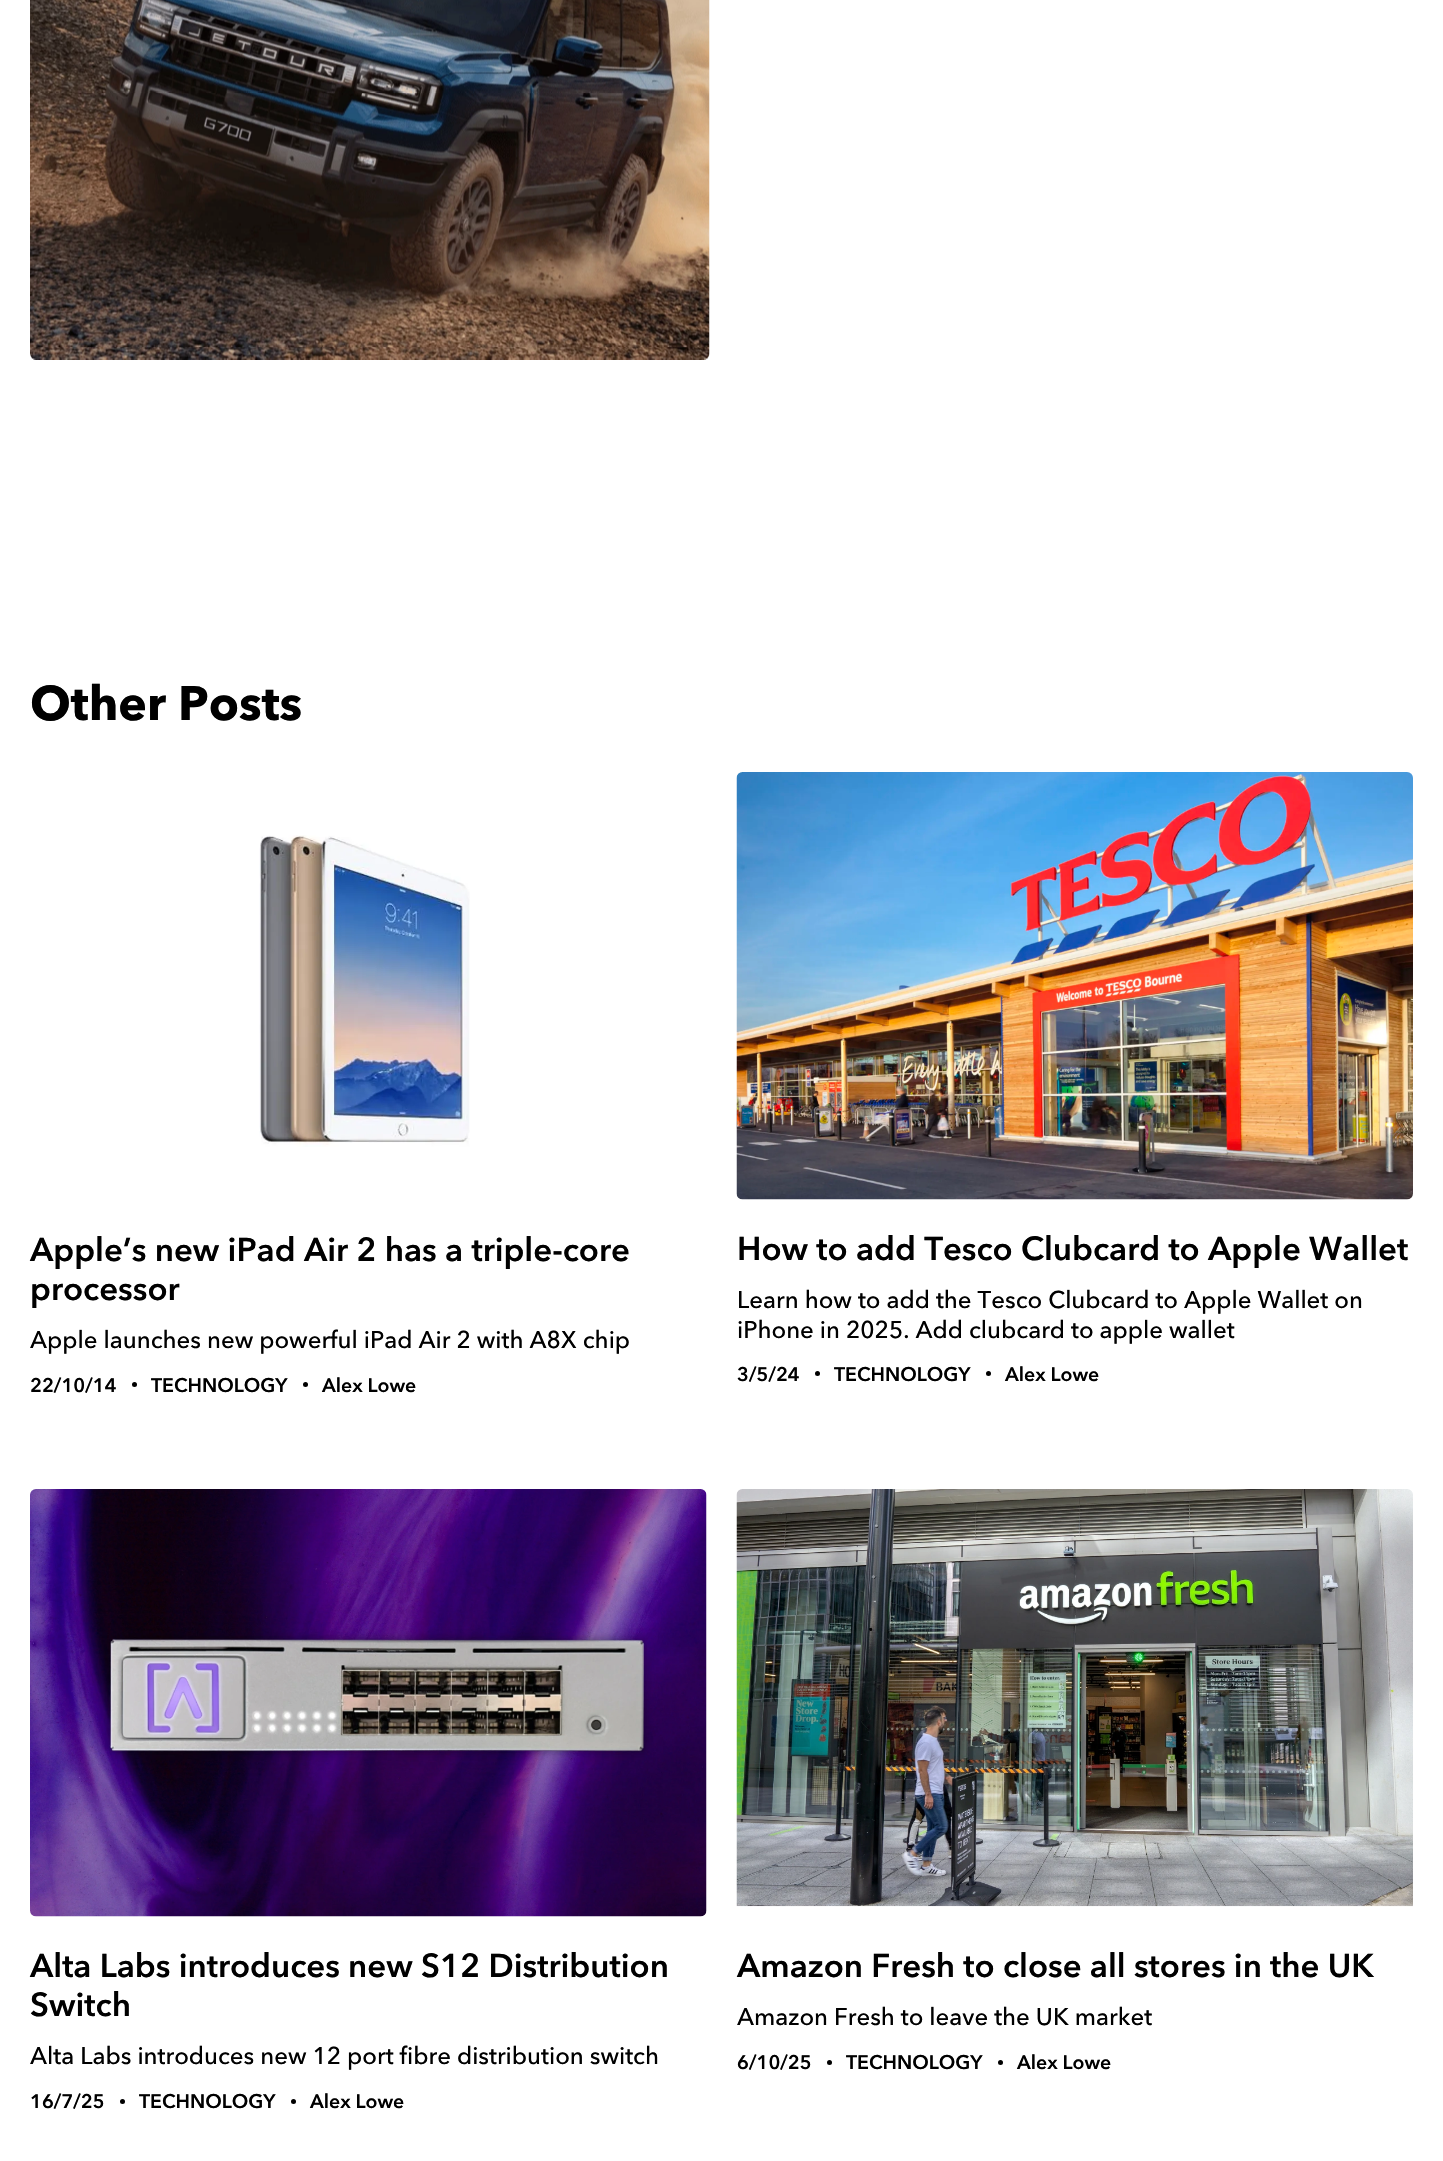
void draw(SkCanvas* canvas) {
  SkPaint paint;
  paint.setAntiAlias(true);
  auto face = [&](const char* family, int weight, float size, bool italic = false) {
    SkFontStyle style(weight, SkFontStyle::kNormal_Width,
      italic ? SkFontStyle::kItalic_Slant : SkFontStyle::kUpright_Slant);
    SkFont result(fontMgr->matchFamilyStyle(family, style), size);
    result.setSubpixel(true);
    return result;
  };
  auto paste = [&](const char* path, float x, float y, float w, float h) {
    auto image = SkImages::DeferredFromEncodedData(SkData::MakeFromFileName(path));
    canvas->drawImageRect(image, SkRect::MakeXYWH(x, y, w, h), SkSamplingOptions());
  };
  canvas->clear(0xffffffff);
  paste("img/1.png", 30, 0, 680, 360);
  paste("img/2.png", 259, 835, 211, 312);
  paint.setColor(0xff000000);
  canvas->drawCircle(134.5f, 1384.5f, 2.5f, paint);
  canvas->drawCircle(305.5f, 1384.5f, 2.5f, paint);
  paste("img/3.png", 736, 772, 677, 428);
  canvas->drawCircle(817.5f, 1373.5f, 2.5f, paint);
  canvas->drawCircle(988.5f, 1373.5f, 2.5f, paint);
  paste("img/4.png", 30, 1489, 677, 428);
  canvas->drawCircle(122.5f, 2101.5f, 2.5f, paint);
  canvas->drawCircle(293.5f, 2101.5f, 2.5f, paint);
  paste("img/5.png", 736, 1489, 677, 418);
  canvas->drawCircle(829.5f, 2062.5f, 2.5f, paint);
  canvas->drawCircle(1000.5f, 2062.5f, 2.5f, paint);
  auto f0 = face("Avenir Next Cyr", 700, 48);
  canvas->drawString("Other Posts", 30, 720, f0, paint);
  auto f1 = face("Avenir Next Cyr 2", 700, 33);
  canvas->drawString("Apple’s new iPad Air 2 has a triple-core", 30, 1261, f1, paint);
  canvas->drawString("processor", 30, 1300, f1, paint);
  auto f2 = face("Avenir Next Cyr", 500, 24);
  canvas->drawString("Apple launches new powerful iPad Air 2 with A8X chip", 30, 1348, f2, paint);
  auto f3 = face("Avenir Next Cyr 2", 700, 19.5f);
  {
    const struct { const char* s; float x, y; } items[] = {
      {"22/10/14", 30, 1392},
      {"TECHNOLOGY", 151, 1392},
      {"Alex Lowe", 322, 1392},
    };
    for (auto [s, x, y] : items) {
      canvas->drawString(s, x, y, f3, paint);
    }
  }
  canvas->drawString("How to add Tesco Clubcard to Apple Wallet", 737, 1260, f1, paint);
  canvas->drawString("Learn how to add the Tesco Clubcard to Apple Wallet on", 737, 1308, f2, paint);
  canvas->drawString("iPhone in 2025. Add clubcard to apple wallet", 737, 1338, f2, paint);
  {
    const struct { const char* s; float x, y; } items[] = {
      {"3/5/24", 737, 1381},
      {"TECHNOLOGY", 834, 1381},
      {"Alex Lowe", 1005, 1381},
    };
    for (auto [s, x, y] : items) {
      canvas->drawString(s, x, y, f3, paint);
    }
  }
  canvas->drawString("Alta Labs introduces new S12 Distribution", 30, 1977, f1, paint);
  canvas->drawString("Switch", 30, 2016, f1, paint);
  canvas->drawString("Alta Labs introduces new 12 port fibre distribution switch", 30, 2064, f2, paint);
  {
    const struct { const char* s; float x, y; } items[] = {
      {"16/7/25", 30, 2108},
      {"TECHNOLOGY", 139, 2108},
      {"Alex Lowe", 310, 2108},
    };
    for (auto [s, x, y] : items) {
      canvas->drawString(s, x, y, f3, paint);
    }
  }
  canvas->drawString("Amazon Fresh to close all stores in the UK", 737, 1977, f1, paint);
  canvas->drawString("Amazon Fresh to leave the UK market", 737, 2025, f2, paint);
  {
    const struct { const char* s; float x, y; } items[] = {
      {"6/10/25", 737, 2069},
      {"TECHNOLOGY", 846, 2069},
      {"Alex Lowe", 1017, 2069},
    };
    for (auto [s, x, y] : items) {
      canvas->drawString(s, x, y, f3, paint);
    }
  }
}
